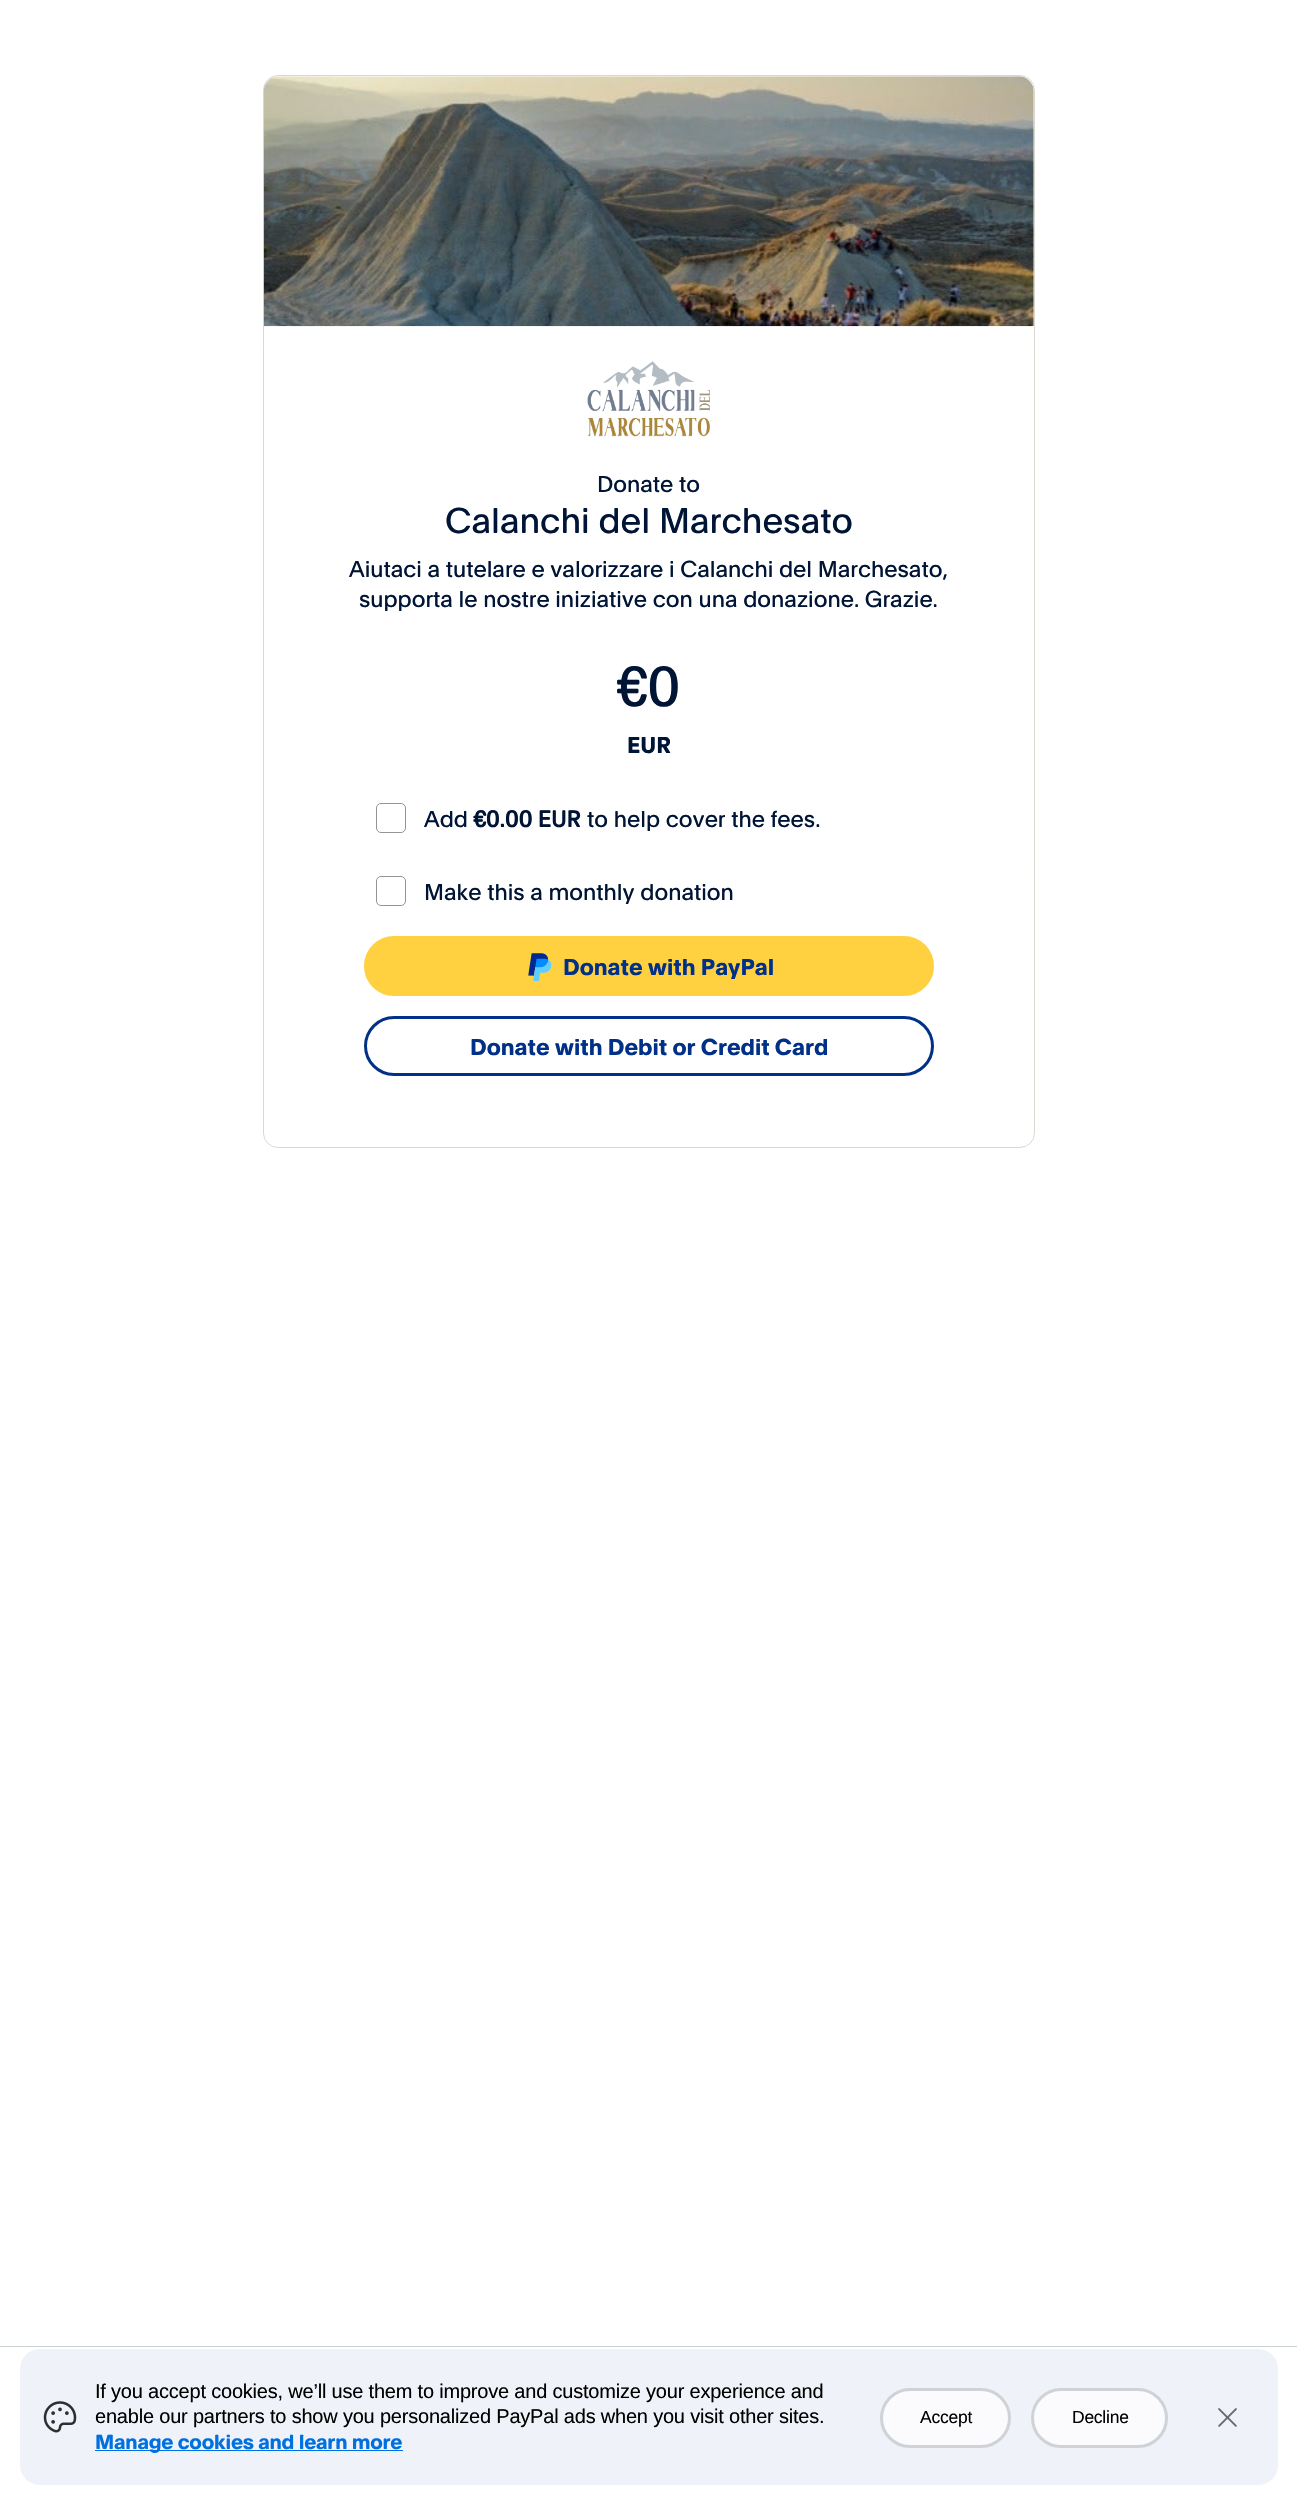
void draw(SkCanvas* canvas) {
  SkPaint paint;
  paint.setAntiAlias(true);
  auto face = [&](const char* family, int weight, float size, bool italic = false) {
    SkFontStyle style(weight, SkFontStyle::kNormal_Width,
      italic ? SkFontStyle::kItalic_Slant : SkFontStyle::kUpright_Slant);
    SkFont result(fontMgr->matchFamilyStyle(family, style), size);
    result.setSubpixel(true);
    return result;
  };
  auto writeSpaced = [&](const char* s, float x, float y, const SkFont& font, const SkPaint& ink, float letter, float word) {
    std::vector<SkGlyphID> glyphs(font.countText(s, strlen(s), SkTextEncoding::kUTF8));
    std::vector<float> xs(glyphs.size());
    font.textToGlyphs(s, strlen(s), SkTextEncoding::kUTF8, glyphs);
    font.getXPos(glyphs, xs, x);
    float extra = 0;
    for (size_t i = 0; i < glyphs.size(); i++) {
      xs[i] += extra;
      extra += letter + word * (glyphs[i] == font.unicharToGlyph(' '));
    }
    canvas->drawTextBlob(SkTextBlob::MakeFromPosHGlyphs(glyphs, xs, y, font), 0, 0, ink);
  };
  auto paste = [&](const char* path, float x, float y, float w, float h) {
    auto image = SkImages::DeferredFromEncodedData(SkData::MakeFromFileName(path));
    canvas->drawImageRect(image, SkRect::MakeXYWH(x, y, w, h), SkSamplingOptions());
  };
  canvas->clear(0xffffffff);
  paint.setStroke(true);
  paint.setStrokeWidth(1);
  paint.setColor(0xffdbd8d0);
  canvas->drawRoundRect(SkRect::MakeXYWH(263.5f, 75.5f, 771, 1072), 14.5f, 14.5f, paint);
  paste("img/1.png", 263, 76, 771, 251);
  paste("img/2.png", 587, 361, 123, 76);
  paint.setColor(0xff929496);
  canvas->drawRoundRect(SkRect::MakeXYWH(376.5f, 803.5f, 29, 29), 4.5f, 4.5f, paint);
  canvas->drawRoundRect(SkRect::MakeXYWH(376.5f, 876.5f, 29, 29), 4.5f, 4.5f, paint);
  paint.setStroke(false);
  paint.setColor(0xffffd140);
  canvas->drawRoundRect(SkRect::MakeXYWH(365.5f, 937.5f, 567, 57), 28.5f, 28.5f, paint);
  paint.setStroke(true);
  paint.setStrokeWidth(3);
  canvas->drawRoundRect(SkRect::MakeXYWH(365.5f, 937.5f, 567, 57), 28.5f, 28.5f, paint);
  paste("img/3.png", 528, 953, 24, 28);
  paint.setColor(0xff003087);
  canvas->drawRoundRect(SkRect::MakeXYWH(365.5f, 1017.5f, 567, 57), 28.5f, 28.5f, paint);
  paint.setStroke(false);
  paint.setColor(0xffcbd2d6);
  canvas->drawRect(SkRect::MakeXYWH(0, 2346, 1297, 1), paint);
  paint.setColor(0xfff0f2f9);
  canvas->drawRoundRect(SkRect::MakeXYWH(20, 2349, 1258, 136), 20, 20, paint);
  paste("img/4.png", 43, 2401, 34, 32);
  paint.setColor(0xff0070e0);
  canvas->drawRect(SkRect::MakeXYWH(95, 2450, 308, 1), paint);
  paint.setColor(0xfffbfbfd);
  canvas->drawRoundRect(SkRect::MakeXYWH(881.5f, 2389.5f, 128, 57), 28.5f, 28.5f, paint);
  paint.setStroke(true);
  paint.setColor(0xffcfd3d8);
  canvas->drawRoundRect(SkRect::MakeXYWH(881.5f, 2389.5f, 128, 57), 28.5f, 28.5f, paint);
  paint.setStroke(false);
  paint.setColor(0xfffbfbfd);
  canvas->drawRoundRect(SkRect::MakeXYWH(1032.5f, 2389.5f, 134, 57), 28.5f, 28.5f, paint);
  paint.setStroke(true);
  paint.setColor(0xffcfd3d8);
  canvas->drawRoundRect(SkRect::MakeXYWH(1032.5f, 2389.5f, 134, 57), 28.5f, 28.5f, paint);
  paste("img/5.png", 1218, 2408, 19, 19);
  auto f0 = face("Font", 400, 22.5f);
  paint.setStroke(false);
  paint.setColor(0xff001435);
  canvas->drawString("Donate to", 597, 492, f0, paint);
  auto f1 = face("Font", 400, 35);
  canvas->drawString("Calanchi del Marchesato", 445, 533, f1, paint);
  canvas->drawString("Aiutaci a tutelare e valorizzare i Calanchi del Marchesato,", 349, 577, f0, paint);
  canvas->drawString("supporta le nostre iniziative con una donazione. Grazie.", 359, 607, f0, paint);
  auto f2 = face("Font", 400, 55);
  canvas->drawString("€0", 616, 706, f2, paint);
  auto f3 = face("Font", 700, 22.5f);
  canvas->drawString("EUR", 627, 753, f3, paint);
  canvas->drawString("Add", 424, 827, f0, paint);
  auto f4 = face("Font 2", 700, 22.5f);
  canvas->drawString("€0.00 EUR", 473, 827, f4, paint);
  canvas->drawString("to help cover the fees.", 587, 827, f0, paint);
  canvas->drawString("Make this a monthly donation", 424, 900, f0, paint);
  paint.setColor(0xff003087);
  canvas->drawString("Donate with PayPal", 563, 975, f3, paint);
  canvas->drawString("Donate with Debit or Credit Card", 470, 1055, f3, paint);
  auto f5 = face("Liberation Sans", 400, 20);
  paint.setColor(0xff000000);
  writeSpaced("If you accept cookies, we’ll use them to improve and customize your experience and", 95, 2398, f5, paint, -0.2f, 0);
  writeSpaced("enable our partners to show you personalized PayPal ads when you visit other sites.", 95, 2423, f5, paint, -0.2f, 0);
  auto f6 = face("Font", 700, 20);
  paint.setColor(0xff0070e0);
  writeSpaced("Manage cookies and learn more", 95, 2449, f6, paint, -0.2f, 0);
  auto f7 = face("Liberation Sans", 400, 17.5f);
  paint.setColor(0xff000000);
  writeSpaced("Accept", 920, 2423, f7, paint, -0.25f, 0);
  writeSpaced("Decline", 1072, 2423, f7, paint, -0.25f, 0);
}
